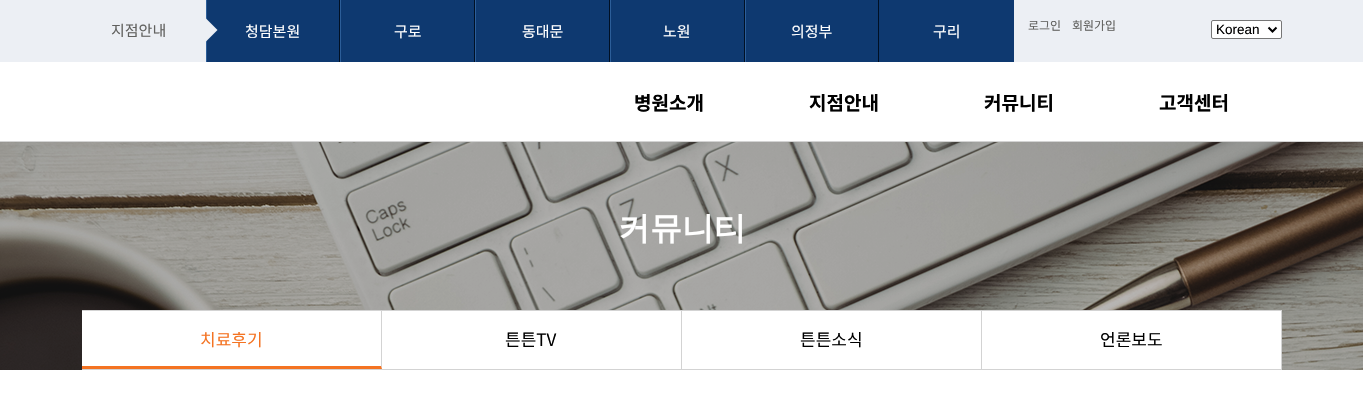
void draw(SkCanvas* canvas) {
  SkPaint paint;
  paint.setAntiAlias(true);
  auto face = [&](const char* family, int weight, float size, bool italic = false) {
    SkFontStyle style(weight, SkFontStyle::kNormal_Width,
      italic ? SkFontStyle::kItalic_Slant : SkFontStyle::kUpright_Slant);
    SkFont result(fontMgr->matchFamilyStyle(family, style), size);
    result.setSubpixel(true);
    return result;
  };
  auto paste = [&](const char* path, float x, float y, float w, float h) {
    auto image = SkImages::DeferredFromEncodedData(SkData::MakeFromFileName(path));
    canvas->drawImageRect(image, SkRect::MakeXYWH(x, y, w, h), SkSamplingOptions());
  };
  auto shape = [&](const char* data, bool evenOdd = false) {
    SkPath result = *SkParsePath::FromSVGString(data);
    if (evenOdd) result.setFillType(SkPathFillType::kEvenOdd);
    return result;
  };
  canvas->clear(0xffffffff);
  {
    const struct { float x, y, w, h; SkColor color; } items[] = {
      {0, 0, 1363, 62, 0xffeceff4},
      {207, 0, 132, 62, 0xff0e3970},
      {206, 0, 1, 62, 0xff2c5e99},
    };
    for (auto [x, y, w, h, color] : items) {
      paint.setColor(color);
      canvas->drawRect(SkRect::MakeXYWH(x, y, w, h), paint);
    }
  }
  paint.setColor(0xffeceff4);
  canvas->drawPath(shape("M200.5 47V13L217.5 30Z"), paint);
  {
    const struct { float x, y, w, h; SkColor color; } items[] = {
      {339, 0, 1, 62, 0xff001024},
      {341, 0, 133, 62, 0xff0e3970},
      {474, 0, 1, 62, 0xff001024},
      {340, 0, 1, 62, 0xff2c5e99},
      {476, 0, 133, 62, 0xff0e3970},
      {609, 0, 1, 62, 0xff001024},
      {475, 0, 1, 62, 0xff2c5e99},
      {611, 0, 133, 62, 0xff0e3970},
      {744, 0, 1, 62, 0xff001024},
      {610, 0, 1, 62, 0xff2c5e99},
      {746, 0, 132, 62, 0xff0e3970},
      {878, 0, 1, 62, 0xff001024},
      {745, 0, 1, 62, 0xff2c5e99},
      {879, 0, 135, 62, 0xff0e3970},
    };
    for (auto [x, y, w, h, color] : items) {
      paint.setColor(color);
      canvas->drawRect(SkRect::MakeXYWH(x, y, w, h), paint);
    }
  }
  paint.setColor(0xffffffff);
  canvas->drawRoundRect(SkRect::MakeXYWH(1211.5f, 20.5f, 70, 18), 1.5f, 1.5f, paint);
  paint.setStroke(true);
  paint.setStrokeWidth(1);
  paint.setColor(0xff767676);
  canvas->drawRoundRect(SkRect::MakeXYWH(1211.5f, 20.5f, 70, 18), 1.5f, 1.5f, paint);
  paint.setStrokeWidth(2);
  paint.setColor(0xff000000);
  canvas->drawPath(shape("M1268.5 27.5L1272.5 31.5L1276.5 27.5"), paint);
  paint.setStroke(false);
  paint.setColor(0xffd3d3d3);
  canvas->drawRect(SkRect::MakeXYWH(0, 141, 1363, 1), paint);
  paste("img/1.png", 0, 142, 1363, 228);
  {
    const struct { float x, y, w, h; SkColor color; } items[] = {
      {82, 311, 1199, 58, 0xffffffff},
      {82, 310, 1200, 1, 0xffd3d3d3},
      {82, 369, 1200, 1, 0xffd3d3d3},
    };
    for (auto [x, y, w, h, color] : items) {
      paint.setColor(color);
      canvas->drawRect(SkRect::MakeXYWH(x, y, w, h), paint);
    }
  }
  canvas->drawPath(shape("M382 311V369L381 366V311Z"), paint);
  paint.setColor(0xfff47322);
  canvas->drawPath(shape("M382 369H82V366H381Z"), paint);
  {
    const struct { float x, y, w, h; SkColor color; } items[] = {
      {681, 311, 1, 58, 0xffd3d3d3},
      {981, 311, 1, 58, 0xffd3d3d3},
      {1281, 311, 1, 58, 0xffd3d3d3},
    };
    for (auto [x, y, w, h, color] : items) {
      paint.setColor(color);
      canvas->drawRect(SkRect::MakeXYWH(x, y, w, h), paint);
    }
  }
  auto f0 = face("Noto Sans KR", 400, 15);
  paint.setColor(0xff61615f);
  canvas->drawString("지점안내", 111, 36, f0, paint);
  paint.setColor(0xffffffff);
  {
    const struct { const char* s; float x, y; } items[] = {
      {"청담본원", 245, 37},
      {"구로", 394, 37},
      {"동대문", 522, 37},
      {"노원", 663, 37},
      {"의정부", 791, 37},
      {"구리", 933, 37},
    };
    for (auto [s, x, y] : items) {
      canvas->drawString(s, x, y, f0, paint);
    }
  }
  auto f1 = face("Noto Sans KR", 400, 12);
  paint.setColor(0xff61615f);
  canvas->drawString("로그인", 1028, 30, f1, paint);
  canvas->drawString("회원가입", 1072, 30, f1, paint);
  auto f2 = face("Liberation Sans", 400, 13.5f);
  paint.setColor(0xff000000);
  canvas->drawString("Korean", 1216, 34, f2, paint);
  auto f3 = face("Noto Sans KR", 700, 19);
  {
    const struct { const char* s; float x, y; } items[] = {
      {"병원소개", 634, 110},
      {"지점안내", 809, 110},
      {"커뮤니티", 984, 110},
      {"고객센터", 1159, 110},
    };
    for (auto [s, x, y] : items) {
      canvas->drawString(s, x, y, f3, paint);
    }
  }
  auto f4 = face("WenQuanYi Zen Hei", 700, 32);
  paint.setColor(0xffffffff);
  canvas->drawString("커뮤니티", 618, 239, f4, paint);
  auto f5 = face("Noto Sans KR", 400, 17);
  paint.setColor(0xfff47322);
  canvas->drawString("치료후기", 200, 346, f5, paint);
  paint.setColor(0xff000000);
  {
    const struct { const char* s; float x, y; } items[] = {
      {"튼튼TV", 505, 346},
      {"튼튼소식", 800, 346},
      {"언론보도", 1100, 346},
    };
    for (auto [s, x, y] : items) {
      canvas->drawString(s, x, y, f5, paint);
    }
  }
}
